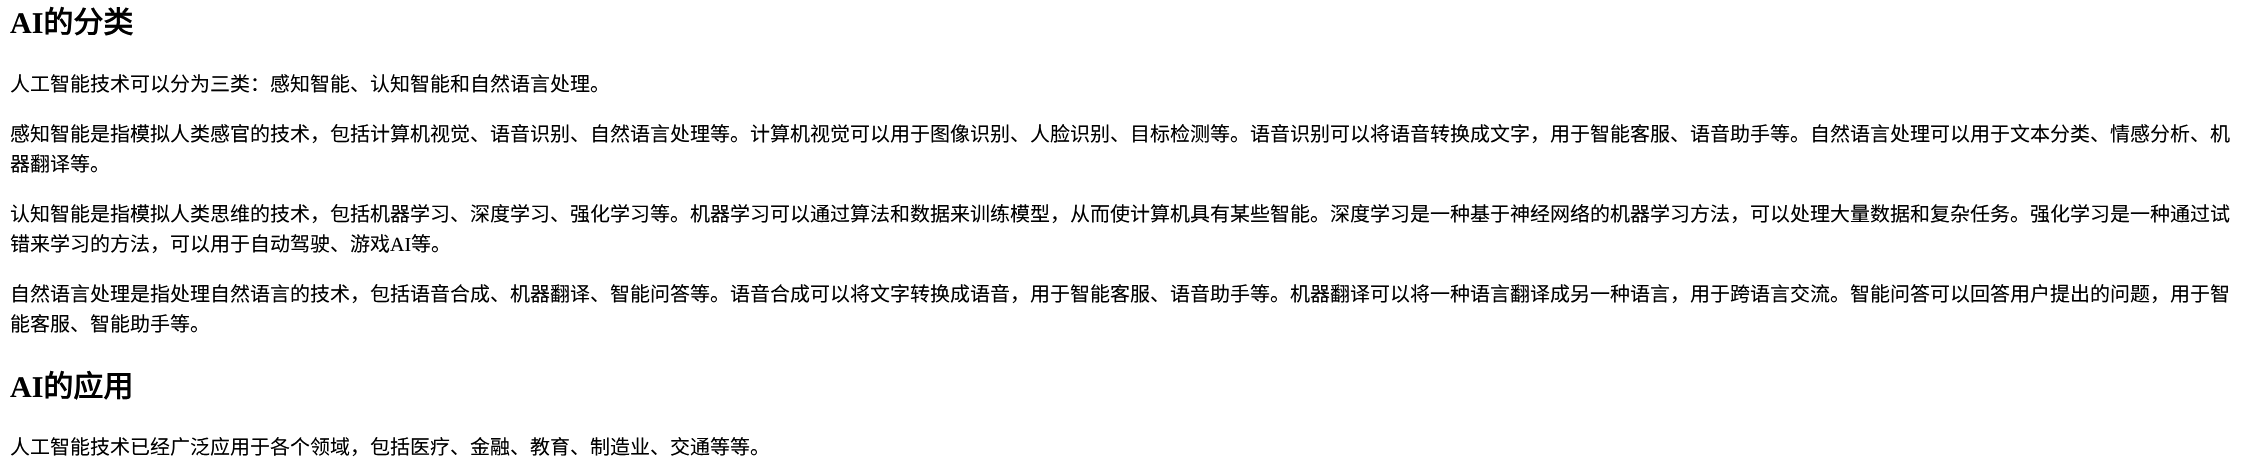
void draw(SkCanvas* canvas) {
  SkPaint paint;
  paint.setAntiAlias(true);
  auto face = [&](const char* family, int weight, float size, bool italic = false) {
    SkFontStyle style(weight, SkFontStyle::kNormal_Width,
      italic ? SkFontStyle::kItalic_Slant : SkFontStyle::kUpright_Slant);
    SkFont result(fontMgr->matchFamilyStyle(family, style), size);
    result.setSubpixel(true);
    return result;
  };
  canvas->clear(0xffffffff);
  auto f0 = face("Liberation Serif", 700, 30);
  paint.setColor(0xff000000);
  canvas->drawString("AI", 10, 33, f0, paint);
  auto f1 = face("Noto Sans CJK SC", 700, 30);
  canvas->drawString("的分类", 43, 33, f1, paint);
  auto f2 = face("Noto Sans CJK SC", 400, 20);
  {
    const struct { const char* s; float x, y; } items[] = {
      {"人工智能技术可以分为三类：感知智能、认知智能和自然语言处理。", 10, 91},
      {"感知智能是指模拟人类感官的技术，包括计算机视觉、语音识别、自然语言处理等。计算机视觉可以用于图像识别、人脸识别、目标检测等。语音识别可以将语音转换成文字，用于智能客服、语音助手等。自然语言处理可以用于文本分类、情感分析、机", 10, 141},
      {"器翻译等。", 10, 171},
      {"认知智能是指模拟人类思维的技术，包括机器学习、深度学习、强化学习等。机器学习可以通过算法和数据来训练模型，从而使计算机具有某些智能。深度学习是一种基于神经网络的机器学习方法，可以处理大量数据和复杂任务。强化学习是一种通过试", 10, 221},
      {"错来学习的方法，可以用于自动驾驶、游戏", 10, 251},
    };
    for (auto [s, x, y] : items) {
      canvas->drawString(s, x, y, f2, paint);
    }
  }
  auto f3 = face("Liberation Serif", 400, 20);
  canvas->drawString("AI", 390, 251, f3, paint);
  {
    const struct { const char* s; float x, y; } items[] = {
      {"等。", 411, 251},
      {"自然语言处理是指处理自然语言的技术，包括语音合成、机器翻译、智能问答等。语音合成可以将文字转换成语音，用于智能客服、语音助手等。机器翻译可以将一种语言翻译成另一种语言，用于跨语言交流。智能问答可以回答用户提出的问题，用于智", 10, 301},
      {"能客服、智能助手等。", 10, 331},
    };
    for (auto [s, x, y] : items) {
      canvas->drawString(s, x, y, f2, paint);
    }
  }
  canvas->drawString("AI", 10, 397, f0, paint);
  canvas->drawString("的应用", 43, 397, f1, paint);
  canvas->drawString("人工智能技术已经广泛应用于各个领域，包括医疗、金融、教育、制造业、交通等等。", 10, 454, f2, paint);
}
